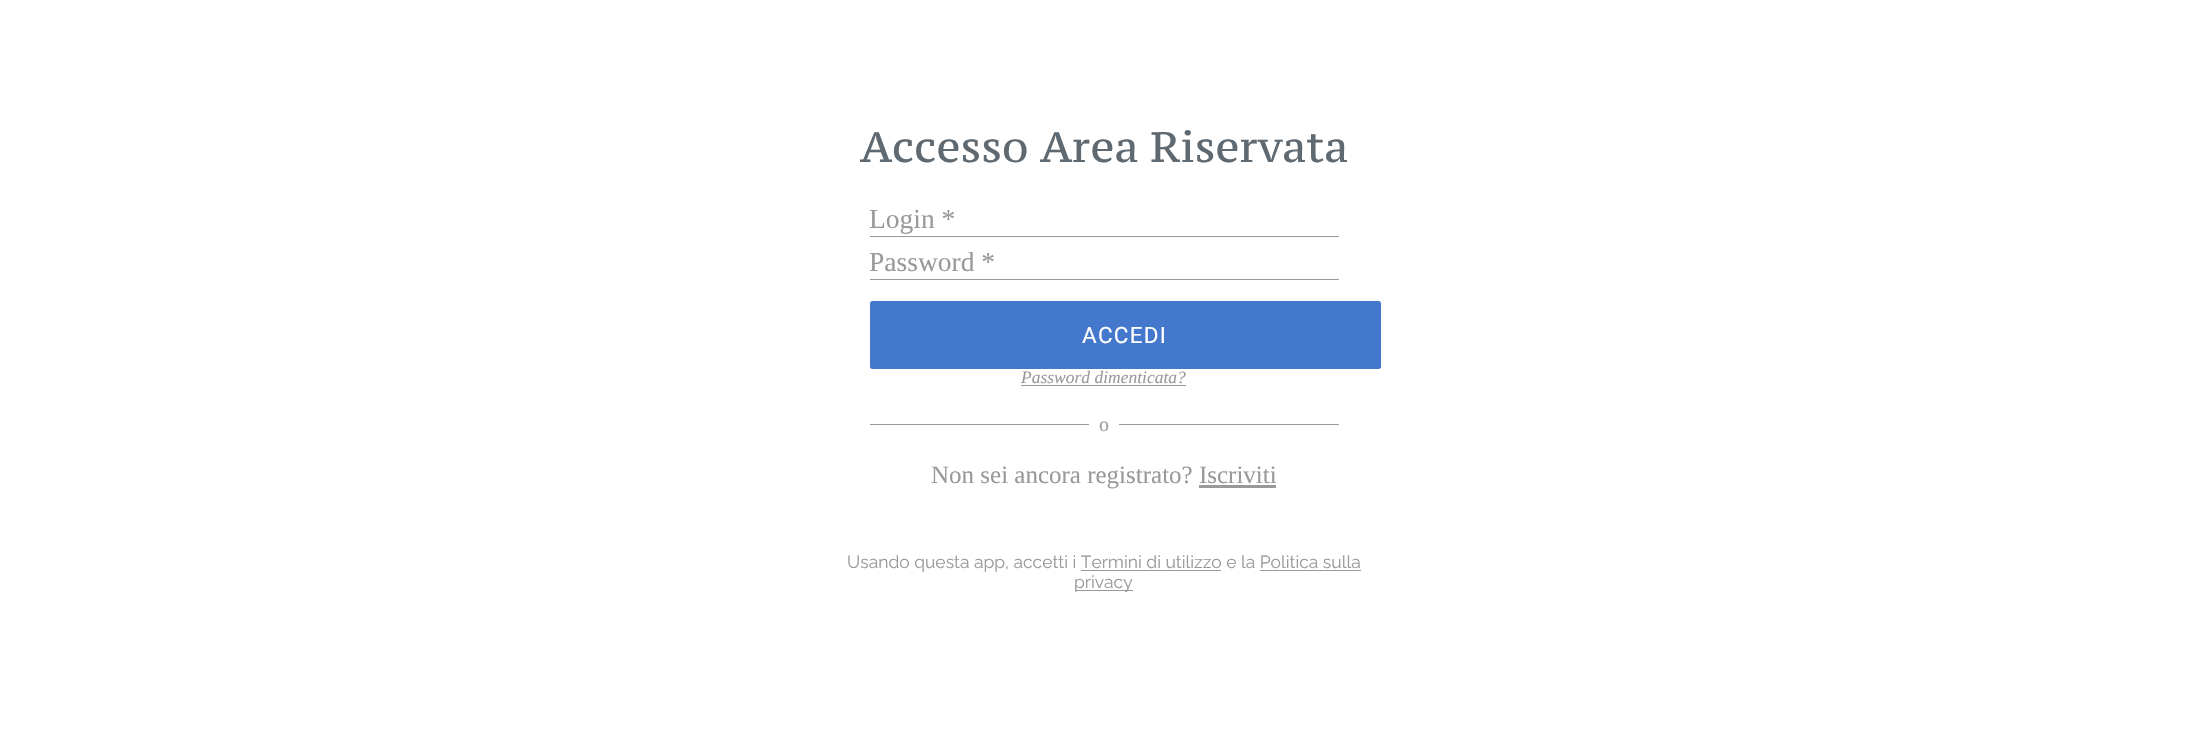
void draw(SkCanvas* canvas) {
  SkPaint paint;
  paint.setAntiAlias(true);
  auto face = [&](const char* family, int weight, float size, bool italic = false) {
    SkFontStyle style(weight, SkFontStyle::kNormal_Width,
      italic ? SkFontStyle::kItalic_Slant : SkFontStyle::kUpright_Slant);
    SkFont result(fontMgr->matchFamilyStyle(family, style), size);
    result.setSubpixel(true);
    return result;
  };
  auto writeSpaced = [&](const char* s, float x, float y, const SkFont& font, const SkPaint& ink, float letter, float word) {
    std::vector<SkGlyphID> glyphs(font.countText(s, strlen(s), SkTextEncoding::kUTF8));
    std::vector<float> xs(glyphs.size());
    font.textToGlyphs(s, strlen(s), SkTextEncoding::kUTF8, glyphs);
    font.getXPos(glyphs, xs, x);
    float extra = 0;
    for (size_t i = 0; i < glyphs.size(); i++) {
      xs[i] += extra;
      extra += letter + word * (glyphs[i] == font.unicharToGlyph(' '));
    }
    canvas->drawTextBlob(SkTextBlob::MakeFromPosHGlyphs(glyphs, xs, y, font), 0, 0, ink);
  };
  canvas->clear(0xffffffff);
  paint.setColor(0xff999999);
  canvas->drawRect(SkRect::MakeXYWH(870, 236, 469, 1), paint);
  canvas->drawRect(SkRect::MakeXYWH(870, 279, 469, 1), paint);
  paint.setColor(0xff4478cc);
  canvas->drawRoundRect(SkRect::MakeXYWH(870, 301, 511, 68), 2.5f, 2.5f, paint);
  {
    const struct { float x, y, w, h; SkColor color; } items[] = {
      {1021, 385, 165, 1, 0xff999999},
      {870, 424, 219, 1, 0xff999999},
      {1119, 424, 220, 1, 0xff999999},
      {1199, 485, 77, 3, 0xff999999},
      {1081, 570, 140, 1, 0xff999999},
      {1260, 570, 101, 1, 0xff999999},
      {1075, 590, 58, 1, 0xff999999},
    };
    for (auto [x, y, w, h, color] : items) {
      paint.setColor(color);
      canvas->drawRect(SkRect::MakeXYWH(x, y, w, h), paint);
    }
  }
  auto f0 = face("PT Serif Caption", 400, 42.5f);
  paint.setColor(0xff5e6971);
  canvas->drawString("Accesso Area Riservata", 860, 162, f0, paint);
  auto f1 = face("Liberation Serif", 400, 27.5f);
  paint.setColor(0xff999999);
  canvas->drawString("Login *", 869, 228, f1, paint);
  canvas->drawString("Password *", 869, 271, f1, paint);
  auto f2 = face("Roboto", 400, 22.5f);
  paint.setColor(0xffffffff);
  writeSpaced("ACCEDI", 1082, 343, f2, paint, 1.25f, 0);
  auto f3 = face("Liberation Serif", 400, 17.5f, true);
  paint.setColor(0xff999999);
  canvas->drawString("Password dimenticata?", 1021, 383, f3, paint);
  auto f4 = face("Liberation Serif", 400, 20);
  canvas->drawString("o", 1099, 431, f4, paint);
  auto f5 = face("Liberation Serif", 400, 25);
  canvas->drawString("Non sei ancora registrato? Iscriviti", 931, 483, f5, paint);
  auto f6 = face("Raleway", 400, 17.5f);
  canvas->drawString("Usando questa app, accetti i Termini di utilizzo e la Politica sulla", 847, 568, f6, paint);
  canvas->drawString("privacy", 1074, 588, f6, paint);
}
